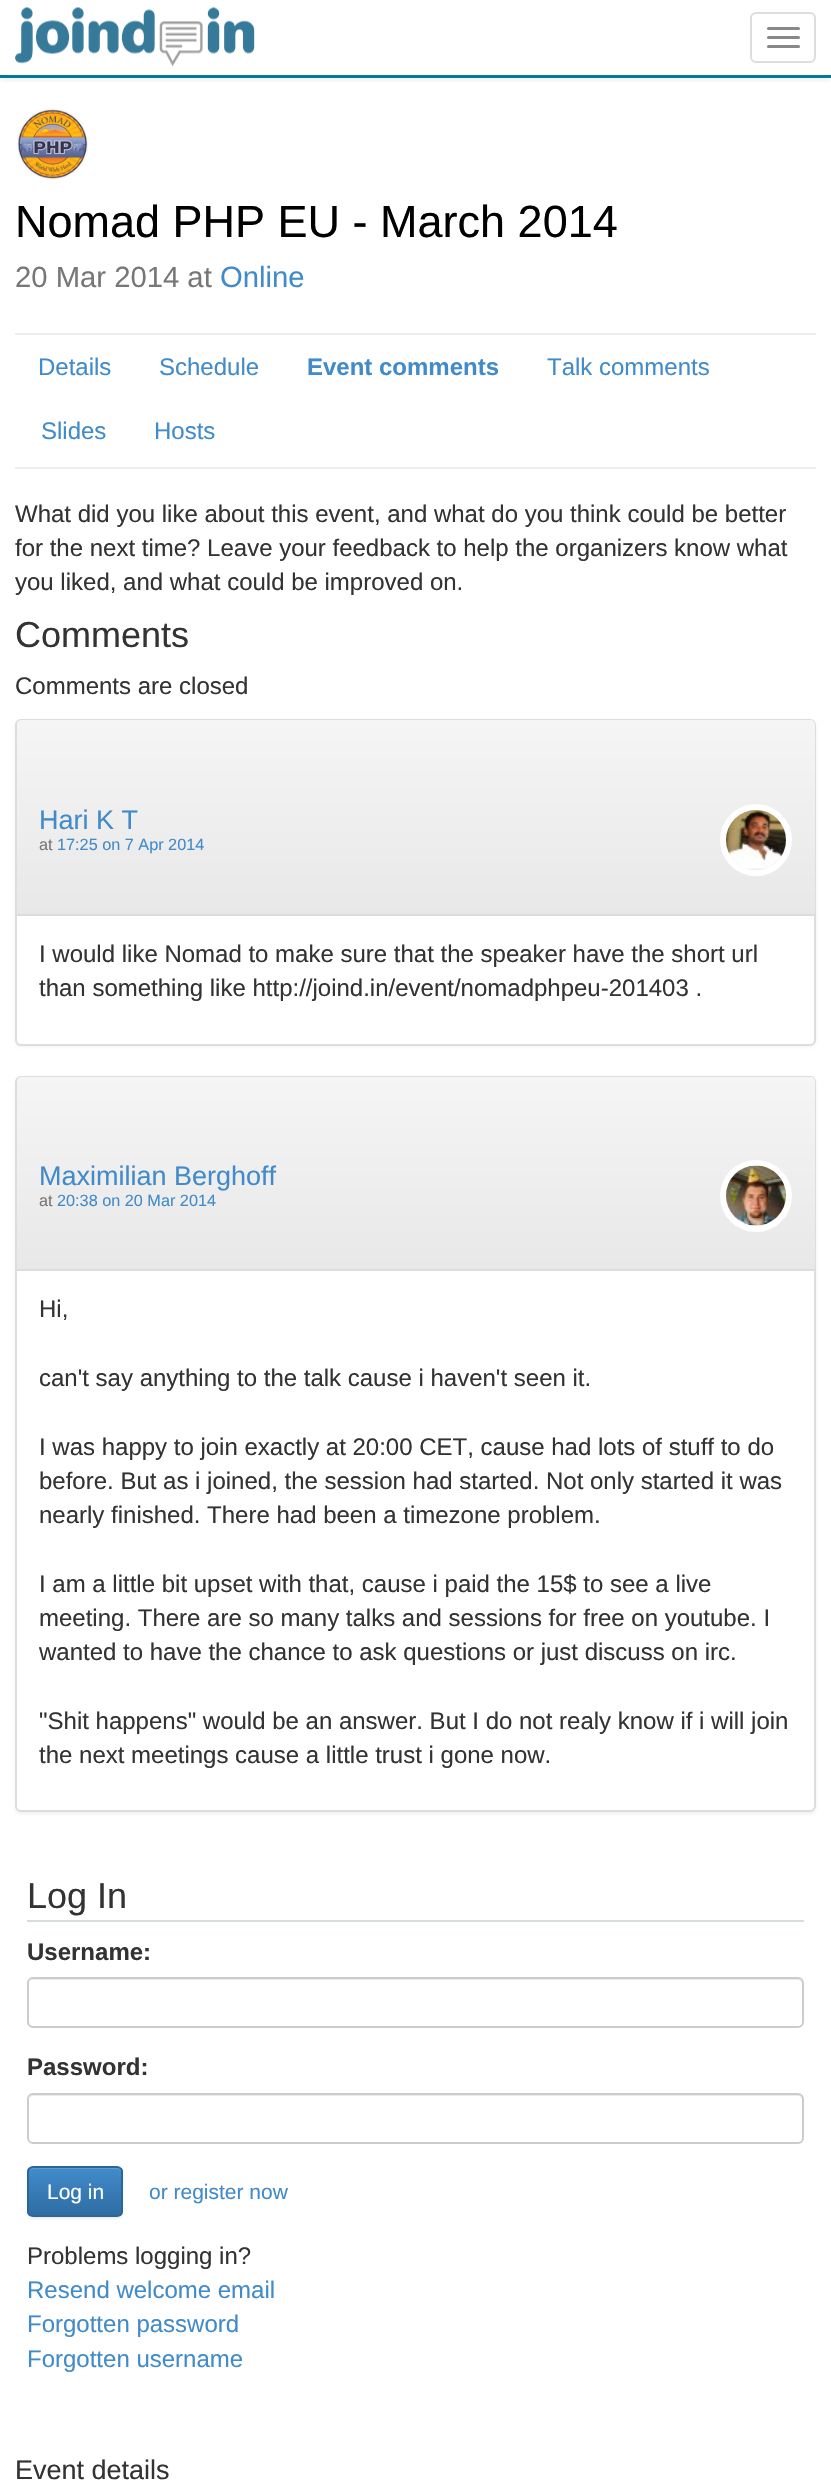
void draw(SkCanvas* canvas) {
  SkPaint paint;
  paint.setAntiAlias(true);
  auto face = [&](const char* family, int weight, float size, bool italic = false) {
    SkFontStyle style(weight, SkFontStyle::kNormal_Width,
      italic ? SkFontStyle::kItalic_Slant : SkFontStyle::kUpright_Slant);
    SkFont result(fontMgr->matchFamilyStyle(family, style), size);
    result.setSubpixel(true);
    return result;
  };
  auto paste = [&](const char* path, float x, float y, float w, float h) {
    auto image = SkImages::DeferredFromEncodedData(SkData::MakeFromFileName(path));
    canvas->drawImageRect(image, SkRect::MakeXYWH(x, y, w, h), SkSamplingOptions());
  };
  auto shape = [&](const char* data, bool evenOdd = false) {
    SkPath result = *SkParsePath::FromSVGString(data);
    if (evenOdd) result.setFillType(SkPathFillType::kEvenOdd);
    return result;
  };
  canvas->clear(0xffffffff);
  canvas->save();
  canvas->clipRect(SkRect::MakeXYWH(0, 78, 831, 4));
  paint.setColor(0x12000000);
  paint.setMaskFilter(SkMaskFilter::MakeBlur(kNormal_SkBlurStyle, 4));
  canvas->drawRect(SkRect::MakeXYWH(0, 2, 831, 78), paint);
  paint.setMaskFilter(nullptr);
  canvas->restore();
  paint.setColor(0xff007b97);
  canvas->drawRect(SkRect::MakeXYWH(0, 75, 831, 3), paint);
  paste("img/1.png", 15, 7, 240, 60);
  paint.setStroke(true);
  paint.setStrokeWidth(2);
  paint.setColor(0xffdddddd);
  canvas->drawRoundRect(SkRect::MakeXYWH(751, 13, 64, 49), 5, 5, paint);
  paint.setStroke(false);
  paint.setColor(0xff888888);
  canvas->drawRoundRect(SkRect::MakeXYWH(767, 27, 33, 3), 1.5f, 1.5f, paint);
  canvas->drawRoundRect(SkRect::MakeXYWH(767, 36, 33, 3), 1.5f, 1.5f, paint);
  canvas->drawRoundRect(SkRect::MakeXYWH(767, 45, 33, 3), 1.5f, 1.5f, paint);
  paint.setColor(0xffeeeeee);
  canvas->drawRect(SkRect::MakeXYWH(15, 467, 801, 2), paint);
  paste("img/2.png", 17, 108, 71, 72);
  canvas->drawRect(SkRect::MakeXYWH(15, 333, 801, 2), paint);
  paint.setColor(0x0d000000);
  paint.setMaskFilter(SkMaskFilter::MakeBlur(kNormal_SkBlurStyle, 1.5f));
  canvas->drawRoundRect(SkRect::MakeXYWH(15, 720, 801, 327), 6, 6, paint);
  paint.setMaskFilter(nullptr);
  paint.setColor(0xffffffff);
  canvas->drawRoundRect(SkRect::MakeXYWH(16, 720, 799, 325), 5, 5, paint);
  paint.setStroke(true);
  paint.setColor(0xffdddddd);
  canvas->drawRoundRect(SkRect::MakeXYWH(16, 720, 799, 325), 5, 5, paint);
  paint.setStroke(false);
  {
    const SkColor colors[] = {0xfff5f5f5, 0xffe8e8e8};
    const float stops[] = {0, 1};
    const SkPoint ends[] = {{416, 720}, {416, 914}};
    paint.setShader(SkGradientShader::MakeLinear(ends, colors, stops, 2, SkTileMode::kClamp));
    paint.setAlpha(255);
  }
  canvas->drawPath(shape("M22 720H810C813 720 815 722 815 725V914H17V725C17 722 19 720 22 720Z"), paint);
  paint.setShader(nullptr);
  paint.setColor(0xffdddddd);
  canvas->drawRect(SkRect::MakeXYWH(17, 914, 798, 2), paint);
  paint.setStroke(true);
  paint.setStrokeWidth(6);
  paint.setColor(0xffffffff);
  canvas->drawCircle(756, 840, 33, paint);
  paste("img/3.png", 726, 810, 60, 60);
  paint.setStroke(false);
  paint.setColor(0x0d000000);
  paint.setMaskFilter(SkMaskFilter::MakeBlur(kNormal_SkBlurStyle, 1.5f));
  canvas->drawRoundRect(SkRect::MakeXYWH(15, 1077, 801, 737), 6, 6, paint);
  paint.setMaskFilter(nullptr);
  paint.setColor(0xffffffff);
  canvas->drawRoundRect(SkRect::MakeXYWH(16, 1077, 799, 734), 5, 5, paint);
  paint.setStroke(true);
  paint.setStrokeWidth(2);
  paint.setColor(0xffdddddd);
  canvas->drawRoundRect(SkRect::MakeXYWH(16, 1077, 799, 734), 5, 5, paint);
  paint.setStroke(false);
  {
    const SkColor colors[] = {0xfff5f5f5, 0xffe8e8e8};
    const float stops[] = {0, 1};
    const SkPoint ends[] = {{416, 1077}, {416, 1269}};
    paint.setShader(SkGradientShader::MakeLinear(ends, colors, stops, 2, SkTileMode::kClamp));
    paint.setAlpha(255);
  }
  canvas->drawPath(shape("M22 1077H810C813 1077 815 1079 815 1082V1269H17V1082C17 1079 19 1077 22 1077Z"), paint);
  paint.setShader(nullptr);
  paint.setColor(0xffdddddd);
  canvas->drawRect(SkRect::MakeXYWH(17, 1269, 798, 2), paint);
  paint.setStroke(true);
  paint.setStrokeWidth(6);
  paint.setColor(0xffffffff);
  canvas->drawCircle(756, 1196, 33, paint);
  paste("img/4.png", 726, 1165, 60, 61);
  paint.setStroke(false);
  paint.setColor(0xffd7dcdf);
  canvas->drawRect(SkRect::MakeXYWH(27, 1920, 777, 2), paint);
  paint.setColor(0xffececec);
  canvas->drawPath(shape("M33 1980H798C800 1980 802 1982 802 1984V2025C803 2024 803 2023 803 2022V1984C803 1981 801 1979 798 1979H34C32 1979 31 1980 30 1981Z"), paint);
  paint.setStroke(true);
  paint.setStrokeWidth(2);
  paint.setColor(0xffcccccc);
  canvas->drawRoundRect(SkRect::MakeXYWH(28, 1978, 775, 49), 5, 5, paint);
  paint.setStroke(false);
  paint.setColor(0xffececec);
  canvas->drawPath(shape("M33 2096H798C800 2096 802 2098 802 2100V2140C803 2139 803 2138 803 2137V2099C803 2096 801 2094 798 2094H34C32 2094 30 2096 29 2098C30 2097 32 2096 33 2096Z"), paint);
  paint.setStroke(true);
  paint.setColor(0xffcccccc);
  canvas->drawRoundRect(SkRect::MakeXYWH(28, 2094, 775, 49), 5, 5, paint);
  paint.setStroke(false);
  paint.setColor(0x12000000);
  paint.setMaskFilter(SkMaskFilter::MakeBlur(kNormal_SkBlurStyle, 1));
  canvas->drawRoundRect(SkRect::MakeXYWH(27, 2168, 96, 51), 6, 6, paint);
  paint.setMaskFilter(nullptr);
  canvas->save();
  canvas->clipPath(shape("M33 2166H117C120.5 2166 123 2168.5 123 2172V2211C123 2214.5 120.5 2217 117 2217H33C29.5 2217 27 2214.5 27 2211V2172C27 2168.5 29.5 2166 33 2166Z"), true);
  {
    const SkColor colors[] = {0xff428bca, 0xff2d6ca2};
    const float stops[] = {0, 1};
    const SkPoint ends[] = {{75, 2168}, {75, 2216}};
    paint.setShader(SkGradientShader::MakeLinear(ends, colors, stops, 2, SkTileMode::kClamp));
    paint.setAlpha(255);
  }
  canvas->drawRect(SkRect::MakeXYWH(27, 2168, 96, 48), paint);
  canvas->restore();
  paint.setShader(nullptr);
  paint.setColor(0x26ffffff);
  canvas->drawPath(shape("M33 2169H117C119 2169 122 2171 122 2174V2173C122 2170 120 2168 117 2168H34C32 2168 31 2169 30 2170Z"), paint);
  paint.setStroke(true);
  paint.setColor(0xff2b669a);
  canvas->drawRoundRect(SkRect::MakeXYWH(28, 2167, 94, 49), 5, 5, paint);
  auto f0 = face("Liberation Sans", 400, 45);
  paint.setStroke(false);
  paint.setColor(0xff000000);
  canvas->drawString("Nomad PHP EU - March 2014", 15, 237, f0, paint);
  auto f1 = face("Liberation Sans", 400, 29.25f);
  paint.setColor(0xff777777);
  canvas->drawString("20 Mar 2014 at", 15, 287, f1, paint);
  paint.setColor(0xff428bca);
  canvas->drawString("Online", 220, 287, f1, paint);
  auto f2 = face("Liberation Sans", 400, 24);
  canvas->drawString("Details", 38, 375, f2, paint);
  canvas->drawString("Schedule", 159, 375, f2, paint);
  auto f3 = face("Liberation Sans", 700, 24);
  canvas->drawString("Event comments", 307, 375, f3, paint);
  {
    const struct { const char* s; float x, y; } items[] = {
      {"Talk comments", 547, 375},
      {"Slides", 41, 439},
      {"Hosts", 154, 439},
    };
    for (auto [s, x, y] : items) {
      canvas->drawString(s, x, y, f2, paint);
    }
  }
  paint.setColor(0xff333333);
  {
    const struct { const char* s; float x, y; } items[] = {
      {"What did you like about this event, and what do you think could be better", 15, 522},
      {"for the next time? Leave your feedback to help the organizers know what", 15, 556},
      {"you liked, and what could be improved on.", 15, 590},
    };
    for (auto [s, x, y] : items) {
      canvas->drawString(s, x, y, f2, paint);
    }
  }
  auto f4 = face("Liberation Sans", 400, 36);
  canvas->drawString("Comments", 15, 647, f4, paint);
  canvas->drawString("Comments are closed", 15, 694, f2, paint);
  auto f5 = face("Liberation Sans", 400, 27);
  paint.setColor(0xff428bca);
  canvas->drawString("Hari K T", 39, 829, f5, paint);
  auto f6 = face("Liberation Sans", 400, 16.25f);
  paint.setColor(0xff777777);
  canvas->drawString("at", 39, 850, f6, paint);
  paint.setColor(0xff428bca);
  canvas->drawString("17:25 on 7 Apr 2014", 57, 850, f6, paint);
  paint.setColor(0xff333333);
  canvas->drawString("I would like Nomad to make sure that the speaker have the short url", 39, 962, f2, paint);
  canvas->drawString("than something like http://joind.in/event/nomadphpeu-201403 .", 39, 996, f2, paint);
  paint.setColor(0xff428bca);
  canvas->drawString("Maximilian Berghoff", 39, 1185, f5, paint);
  paint.setColor(0xff777777);
  canvas->drawString("at", 39, 1206, f6, paint);
  paint.setColor(0xff428bca);
  canvas->drawString("20:38 on 20 Mar 2014", 57, 1206, f6, paint);
  paint.setColor(0xff333333);
  {
    const struct { const char* s; float x, y; } items[] = {
      {"Hi,", 39, 1317},
      {"can't say anything to the talk cause i haven't seen it.", 39, 1386},
      {"I was happy to join exactly at 20:00 CET, cause had lots of stuff to do", 39, 1455},
      {"before. But as i joined, the session had started. Not only started it was", 39, 1489},
      {"nearly finished. There had been a timezone problem.", 39, 1523},
      {"I am a little bit upset with that, cause i paid the 15$ to see a live", 39, 1592},
      {"meeting. There are so many talks and sessions for free on youtube. I", 39, 1626},
      {"wanted to have the chance to ask questions or just discuss on irc.", 39, 1660},
      {"\"Shit happens\" would be an answer. But I do not realy know if i will join", 39, 1729},
      {"the next meetings cause a little trust i gone now.", 39, 1763},
    };
    for (auto [s, x, y] : items) {
      canvas->drawString(s, x, y, f2, paint);
    }
  }
  canvas->drawString("Log In", 27, 1908, f4, paint);
  canvas->drawString("Username:", 27, 1960, f3, paint);
  canvas->drawString("Password:", 27, 2075, f3, paint);
  auto f7 = face("Liberation Sans", 400, 21);
  paint.setColor(0xffffffff);
  canvas->drawString("Log in", 47, 2199, f7, paint);
  paint.setColor(0xff428bca);
  canvas->drawString("or register now", 149, 2199, f7, paint);
  paint.setColor(0xff333333);
  canvas->drawString("Problems logging in?", 27, 2264, f2, paint);
  paint.setColor(0xff428bca);
  {
    const struct { const char* s; float x, y; } items[] = {
      {"Resend welcome email", 27, 2298},
      {"Forgotten password", 27, 2332},
      {"Forgotten username", 27, 2367},
    };
    for (auto [s, x, y] : items) {
      canvas->drawString(s, x, y, f2, paint);
    }
  }
  paint.setColor(0xff333333);
  canvas->drawString("Event details", 15, 2479, f5, paint);
}
